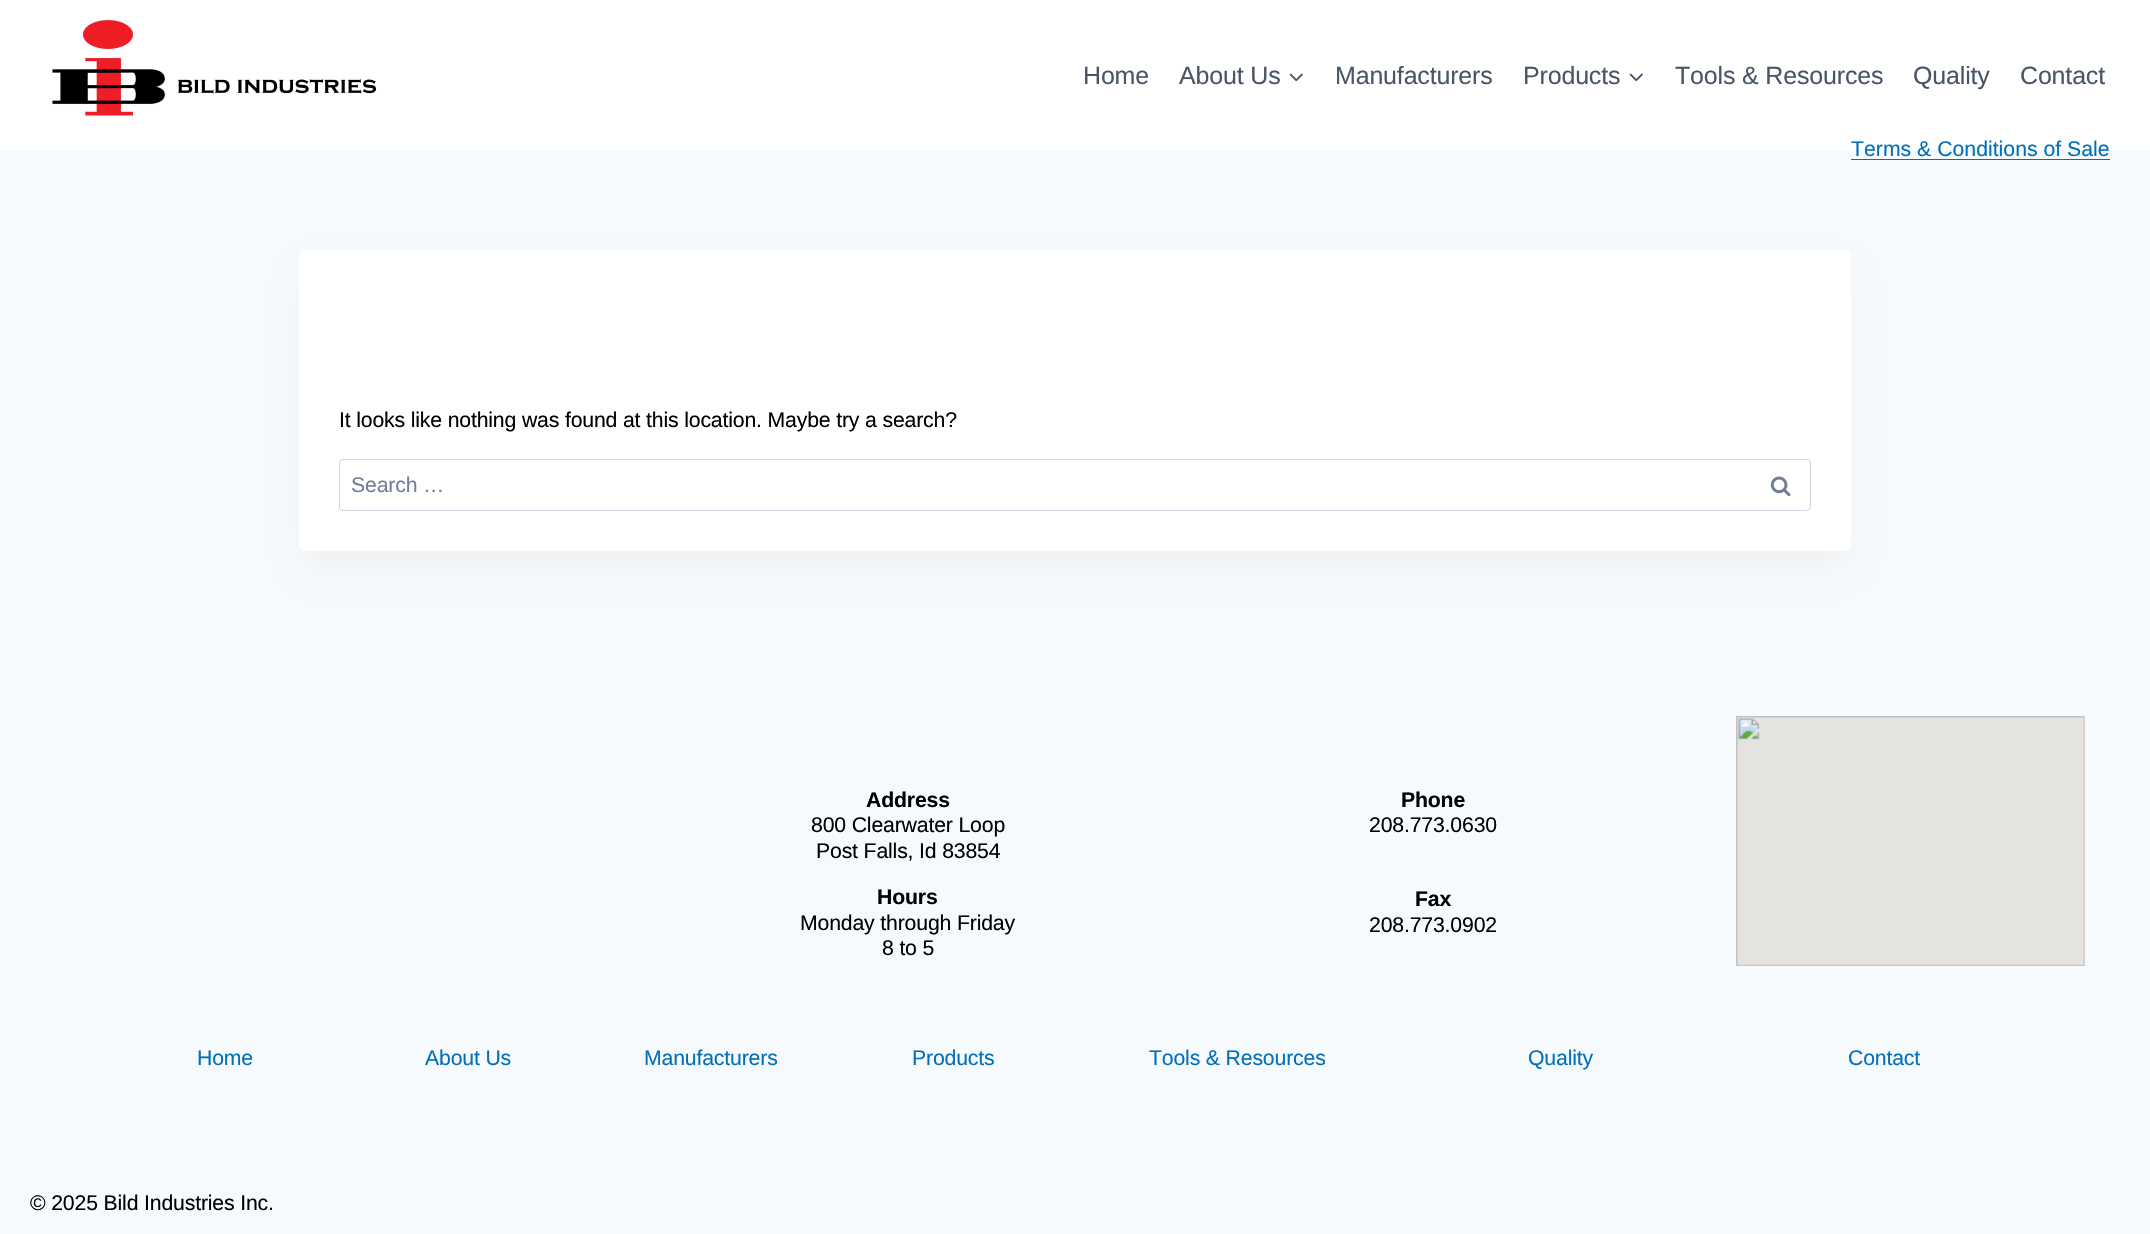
void draw(SkCanvas* canvas) {
  SkPaint paint;
  paint.setAntiAlias(true);
  auto face = [&](const char* family, int weight, float size, bool italic = false) {
    SkFontStyle style(weight, SkFontStyle::kNormal_Width,
      italic ? SkFontStyle::kItalic_Slant : SkFontStyle::kUpright_Slant);
    SkFont result(fontMgr->matchFamilyStyle(family, style), size);
    result.setSubpixel(true);
    return result;
  };
  auto writeSpaced = [&](const char* s, float x, float y, const SkFont& font, const SkPaint& ink, float letter, float word) {
    std::vector<SkGlyphID> glyphs(font.countText(s, strlen(s), SkTextEncoding::kUTF8));
    std::vector<float> xs(glyphs.size());
    font.textToGlyphs(s, strlen(s), SkTextEncoding::kUTF8, glyphs);
    font.getXPos(glyphs, xs, x);
    float extra = 0;
    for (size_t i = 0; i < glyphs.size(); i++) {
      xs[i] += extra;
      extra += letter + word * (glyphs[i] == font.unicharToGlyph(' '));
    }
    canvas->drawTextBlob(SkTextBlob::MakeFromPosHGlyphs(glyphs, xs, y, font), 0, 0, ink);
  };
  auto paste = [&](const char* path, float x, float y, float w, float h) {
    auto image = SkImages::DeferredFromEncodedData(SkData::MakeFromFileName(path));
    canvas->drawImageRect(image, SkRect::MakeXYWH(x, y, w, h), SkSamplingOptions());
  };
  canvas->clear(0xfff7fafc);
  paint.setColor(0xffffffff);
  canvas->drawRect(SkRect::MakeXYWH(0, 0, 2150, 150), paint);
  paste("img/1.png", 51, 19, 326, 98);
  paste("img/2.png", 1289, 73, 14, 9);
  paste("img/2.png", 1629, 73, 14, 9);
  paint.setColor(0xff0170b9);
  canvas->drawRect(SkRect::MakeXYWH(1851, 159, 259, 1), paint);
  paint.setColor(0x0d000000);
  paint.setMaskFilter(SkMaskFilter::MakeBlur(kNormal_SkBlurStyle, 15.5f));
  canvas->drawRect(SkRect::MakeXYWH(311, 281, 1528, 277), paint);
  paint.setMaskFilter(nullptr);
  paint.setColor(0xffffffff);
  canvas->drawRoundRect(SkRect::MakeXYWH(299, 250, 1552, 301), 5, 5, paint);
  paint.setStroke(true);
  paint.setStrokeWidth(1);
  paint.setColor(0xffcbd5e0);
  canvas->drawRoundRect(SkRect::MakeXYWH(339.5f, 459.5f, 1471, 51), 3.5f, 3.5f, paint);
  paste("img/3.png", 1770, 476, 21, 20);
  paste("img/4.png", 1736, 716, 349, 250);
  auto f0 = face("Liberation Sans", 400, 25);
  paint.setStroke(false);
  paint.setColor(0xff4a5568);
  {
    const struct { const char* s; float x, y; } items[] = {
      {"Home", 1083, 84},
      {"About Us", 1179, 84},
      {"Manufacturers", 1335, 84},
      {"Products", 1523, 84},
      {"Tools & Resources", 1675, 84},
      {"Quality", 1913, 84},
      {"Contact", 2020, 84},
    };
    for (auto [s, x, y] : items) {
      writeSpaced(s, x, y, f0, paint, -0.17f, 0);
    }
  }
  auto f1 = face("Liberation Sans", 400, 21.25f);
  paint.setColor(0xff0170b9);
  canvas->drawString("Terms & Conditions of Sale", 1851, 156, f1, paint);
  paint.setColor(0xff000000);
  writeSpaced("It looks like nothing was found at this location. Maybe try a search?", 339, 427, f1, paint, -0.17f, 0);
  paint.setColor(0xff718096);
  writeSpaced("Search …", 351, 492, f1, paint, -0.17f, 0);
  auto f2 = face("Liberation Sans", 700, 21.25f);
  paint.setColor(0xff000000);
  writeSpaced("Address", 866, 807, f2, paint, -0.17f, 0);
  writeSpaced("800 Clearwater Loop", 811, 832, f1, paint, -0.17f, 0);
  writeSpaced("Post Falls, Id 83854", 816, 858, f1, paint, -0.17f, 0);
  writeSpaced("Hours", 877, 904, f2, paint, -0.17f, 0);
  writeSpaced("Monday through Friday", 800, 930, f1, paint, -0.17f, 0);
  writeSpaced("8 to 5", 882, 955, f1, paint, -0.17f, 0);
  writeSpaced("Phone", 1401, 807, f2, paint, -0.17f, 0);
  writeSpaced("208.773.0630", 1369, 832, f1, paint, -0.17f, 0);
  writeSpaced("Fax", 1415, 906, f2, paint, -0.17f, 0);
  writeSpaced("208.773.0902", 1369, 932, f1, paint, -0.17f, 0);
  paint.setColor(0xff0170b9);
  {
    const struct { const char* s; float x, y; } items[] = {
      {"Home", 197, 1065},
      {"About Us", 425, 1065},
      {"Manufacturers", 644, 1065},
      {"Products", 912, 1065},
      {"Tools & Resources", 1149, 1065},
      {"Quality", 1528, 1065},
      {"Contact", 1848, 1065},
    };
    for (auto [s, x, y] : items) {
      writeSpaced(s, x, y, f1, paint, -0.17f, 0);
    }
  }
  paint.setColor(0xff000000);
  writeSpaced("© 2025 Bild Industries Inc.", 30, 1210, f1, paint, -0.17f, 0);
}
